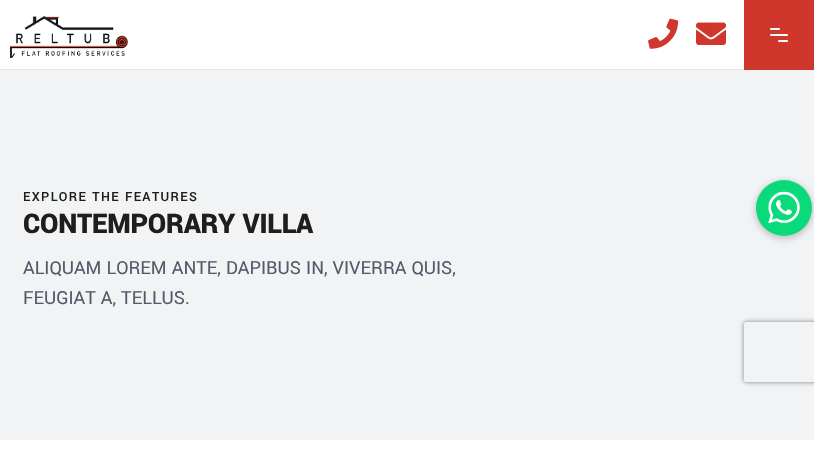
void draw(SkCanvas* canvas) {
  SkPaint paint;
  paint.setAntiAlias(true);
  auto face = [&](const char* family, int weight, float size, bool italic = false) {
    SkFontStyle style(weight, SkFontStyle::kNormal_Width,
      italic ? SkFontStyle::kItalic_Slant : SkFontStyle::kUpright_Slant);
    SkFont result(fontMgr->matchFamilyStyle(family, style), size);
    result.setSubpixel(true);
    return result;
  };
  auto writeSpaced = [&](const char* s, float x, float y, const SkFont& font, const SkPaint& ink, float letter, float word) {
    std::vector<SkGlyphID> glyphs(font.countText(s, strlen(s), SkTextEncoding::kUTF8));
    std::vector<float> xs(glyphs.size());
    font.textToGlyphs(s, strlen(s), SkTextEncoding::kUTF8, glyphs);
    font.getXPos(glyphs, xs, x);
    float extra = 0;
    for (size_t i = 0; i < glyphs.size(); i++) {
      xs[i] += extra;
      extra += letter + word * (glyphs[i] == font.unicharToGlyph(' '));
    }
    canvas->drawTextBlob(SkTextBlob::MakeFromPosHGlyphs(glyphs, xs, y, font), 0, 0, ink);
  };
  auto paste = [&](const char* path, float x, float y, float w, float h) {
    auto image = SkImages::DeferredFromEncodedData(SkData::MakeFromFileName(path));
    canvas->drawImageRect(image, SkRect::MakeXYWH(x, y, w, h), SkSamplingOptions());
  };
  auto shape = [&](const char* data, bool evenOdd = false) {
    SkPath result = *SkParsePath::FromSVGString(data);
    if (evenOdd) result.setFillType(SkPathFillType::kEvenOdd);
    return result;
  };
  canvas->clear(0xffffffff);
  paint.setColor(0xffe8e8e9);
  canvas->drawRect(SkRect::MakeXYWH(0, 69, 744, 1), paint);
  paste("img/1.png", 10, 16, 118, 42);
  paste("img/2.png", 648, 18, 31, 31);
  paste("img/3.png", 696, 22, 30, 23);
  paint.setColor(0xffcf372d);
  canvas->drawRect(SkRect::MakeXYWH(744, 0, 70, 70), paint);
  paint.setColor(0xffffffff);
  canvas->drawRoundRect(SkRect::MakeXYWH(770, 28, 10, 2), 1, 1, paint);
  canvas->drawRoundRect(SkRect::MakeXYWH(770, 34, 18, 2), 1, 1, paint);
  canvas->drawRoundRect(SkRect::MakeXYWH(778, 40, 10, 2), 1, 1, paint);
  paint.setColor(0xfff2f3f5);
  canvas->drawRect(SkRect::MakeXYWH(0, 70, 814, 370), paint);
  paint.setColor(0x33000000);
  paint.setMaskFilter(SkMaskFilter::MakeBlur(kNormal_SkBlurStyle, 3));
  canvas->drawRoundRect(SkRect::MakeXYWH(755, 181, 58, 58), 29, 29, paint);
  paint.setMaskFilter(nullptr);
  paint.setColor(0xff0ada79);
  canvas->drawCircle(784, 208, 28, paint);
  paste("img/4.png", 768, 191, 32, 33);
  canvas->save();
  canvas->clipPath(shape("M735 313H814V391H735ZM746 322H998C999 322 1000 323 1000 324V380C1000 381 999 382 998 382H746C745 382 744 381 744 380V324C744 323 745 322 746 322Z", true), true);
  paint.setColor(0xff808080);
  paint.setMaskFilter(SkMaskFilter::MakeBlur(kNormal_SkBlurStyle, 2.5f));
  canvas->drawRoundRect(SkRect::MakeXYWH(744, 322, 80, 60), 2, 2, paint);
  paint.setMaskFilter(nullptr);
  canvas->restore();
  auto f0 = face("Yantramanav", 500, 14);
  paint.setColor(0xff1e1e1e);
  writeSpaced("EXPLORE THE FEATURES", 23, 201, f0, paint, 1.4f, 0);
  auto f1 = face("Yantramanav", 900, 30);
  writeSpaced("CONTEMPORARY VILLA", 23, 233, f1, paint, -0.25f, 0);
  auto f2 = face("Yantramanav", 400, 20);
  paint.setColor(0xff565969);
  canvas->drawString("ALIQUAM LOREM ANTE, DAPIBUS IN, VIVERRA QUIS,", 23, 274, f2, paint);
  canvas->drawString("FEUGIAT A, TELLUS.", 23, 304, f2, paint);
}
